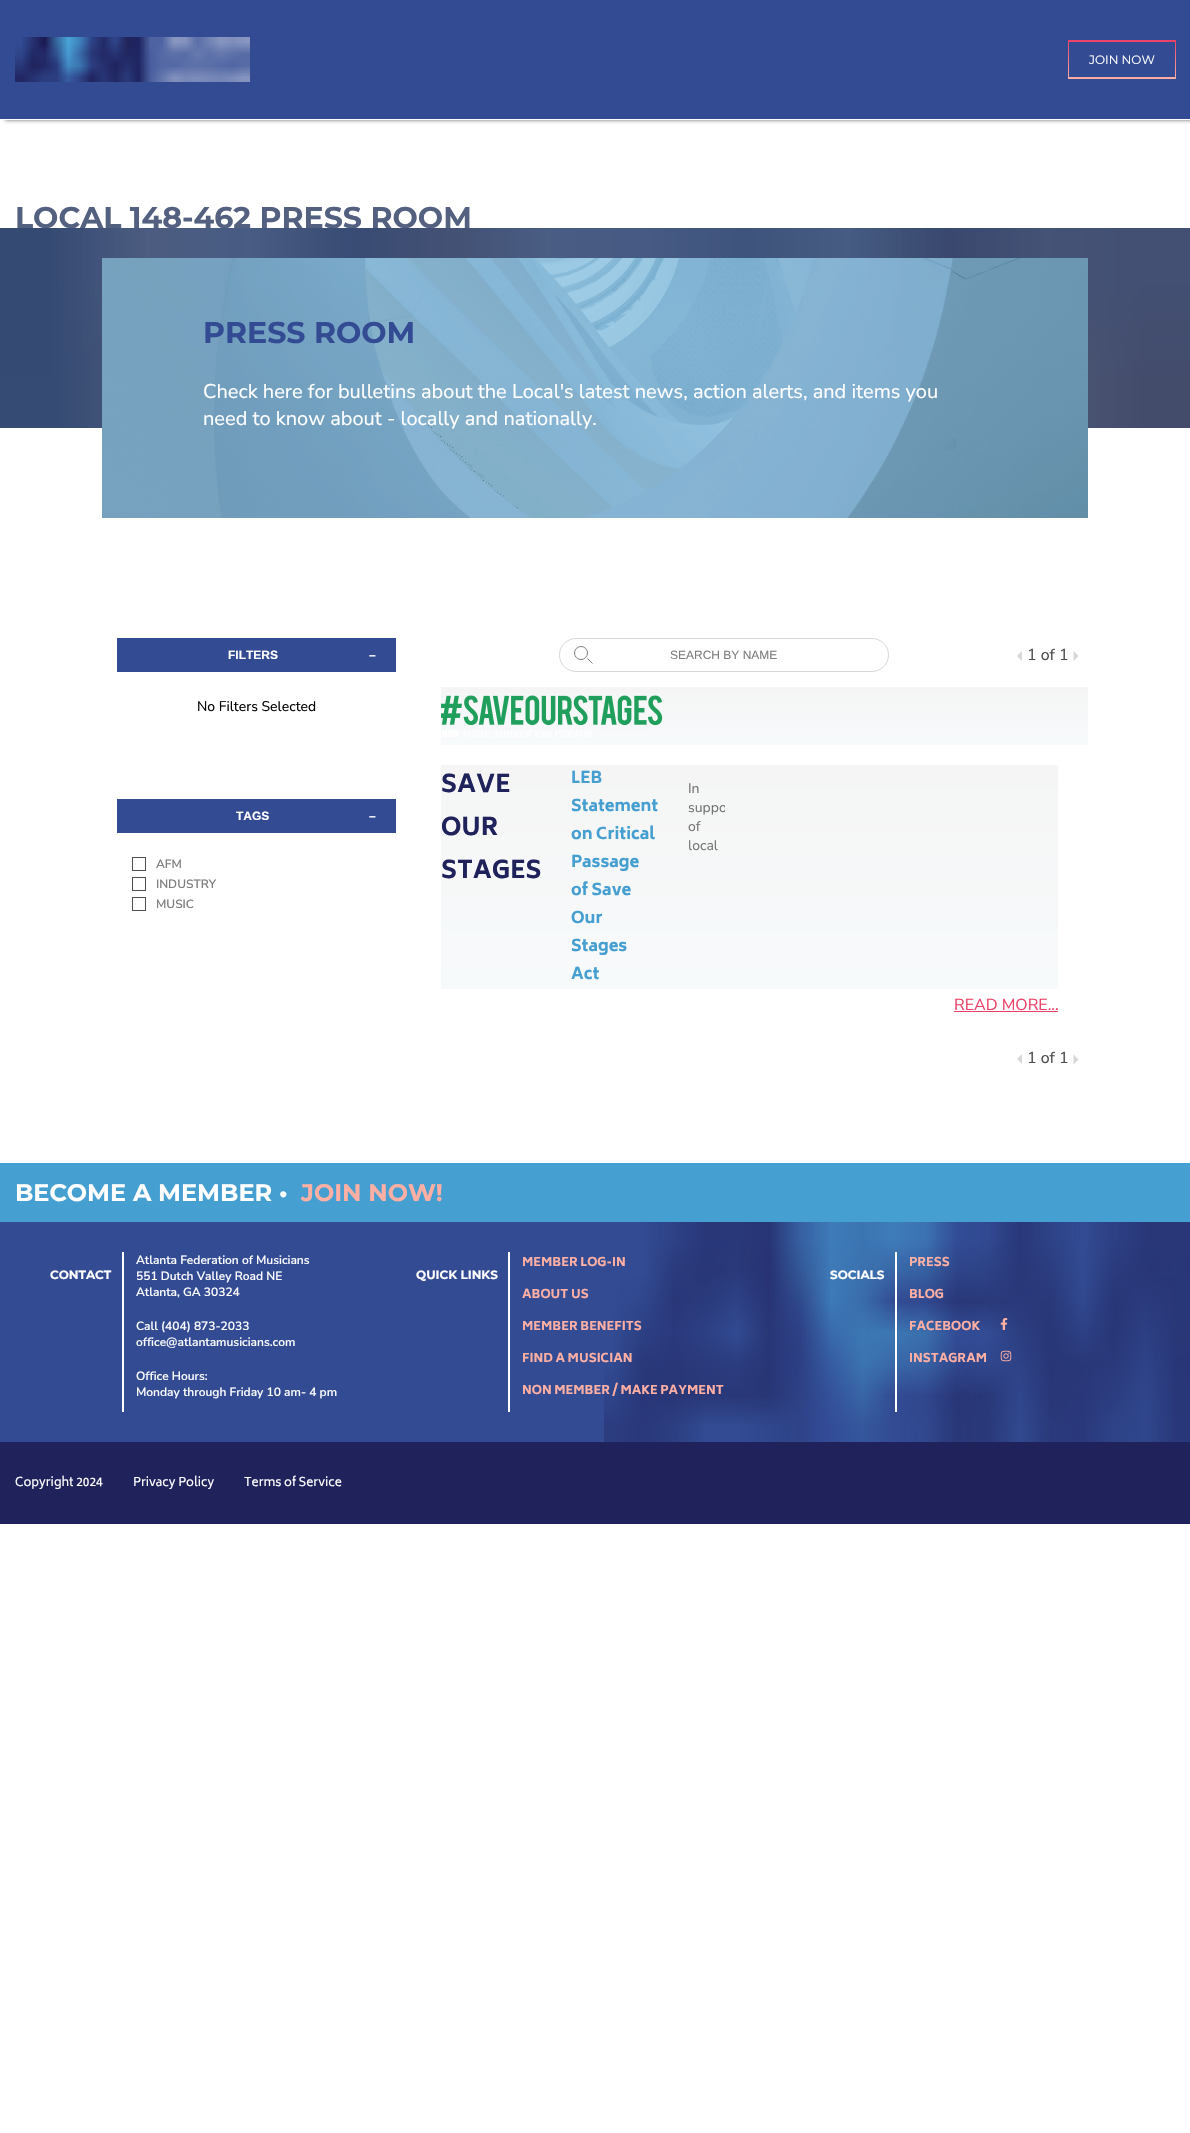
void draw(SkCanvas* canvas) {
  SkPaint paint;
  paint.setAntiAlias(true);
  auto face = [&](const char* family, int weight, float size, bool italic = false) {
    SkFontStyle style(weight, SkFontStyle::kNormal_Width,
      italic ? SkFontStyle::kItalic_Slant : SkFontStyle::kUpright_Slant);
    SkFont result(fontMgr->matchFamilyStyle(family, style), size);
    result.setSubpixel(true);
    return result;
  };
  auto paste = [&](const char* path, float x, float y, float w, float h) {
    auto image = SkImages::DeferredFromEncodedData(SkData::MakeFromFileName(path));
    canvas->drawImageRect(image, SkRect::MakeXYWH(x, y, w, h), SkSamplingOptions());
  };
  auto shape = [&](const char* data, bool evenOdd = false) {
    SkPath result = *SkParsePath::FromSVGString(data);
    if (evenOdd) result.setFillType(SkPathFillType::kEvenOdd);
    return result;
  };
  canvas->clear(0xffffffff);
  paint.setColor(0x99000000);
  paint.setMaskFilter(SkMaskFilter::MakeBlur(kNormal_SkBlurStyle, 2));
  canvas->drawRect(SkRect::MakeXYWH(5, 0, 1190, 120), paint);
  paint.setMaskFilter(nullptr);
  paint.setColor(0xff324b93);
  canvas->drawRect(SkRect::MakeXYWH(0, 0, 1190, 119), paint);
  paint.setColor(0xffffffff);
  canvas->drawRect(SkRect::MakeXYWH(0, 119, 1190, 1), paint);
  paste("img/1.png", 15, 37, 235, 45);
  {
    const SkColor colors[] = {0xffec4067, 0xffffafa3};
    const float stops[] = {0, 1};
    const SkPoint ends[] = {{1122, 40}, {1122, 79}};
    paint.setShader(SkGradientShader::MakeLinear(ends, colors, stops, 2, SkTileMode::kClamp));
    paint.setAlpha(255);
  }
  canvas->drawRect(SkRect::MakeXYWH(1068, 40, 108, 39), paint);
  paint.setShader(nullptr);
  {
    const struct { float x, y, w, h; SkColor color; } items[] = {
      {1069, 42, 106, 35, 0xff324b93},
      {117, 638, 279, 34, 0xff324b93},
      {117, 799, 279, 34, 0xff324b93},
    };
    for (auto [x, y, w, h, color] : items) {
      paint.setColor(color);
      canvas->drawRect(SkRect::MakeXYWH(x, y, w, h), paint);
    }
  }
  paint.setStroke(true);
  paint.setStrokeWidth(1);
  paint.setColor(0xff4c4c4c);
  canvas->drawRect(SkRect::MakeXYWH(132.5f, 857.5f, 13, 13), paint);
  canvas->drawRect(SkRect::MakeXYWH(132.5f, 877.5f, 13, 13), paint);
  canvas->drawRect(SkRect::MakeXYWH(132.5f, 897.5f, 13, 13), paint);
  paint.setColor(0xffd7d7d7);
  canvas->drawRoundRect(SkRect::MakeXYWH(559.5f, 638.5f, 329, 33), 16.5f, 16.5f, paint);
  paint.setColor(0xff7d7d7d);
  canvas->drawCircle(581, 653, 6.5f, paint);
  canvas->drawPath(shape("M587.5 658.5L592.5 663.5"), paint);
  paint.setStroke(false);
  paint.setColor(0xffd7d7d7);
  canvas->drawPath(shape("M1022 651V661L1017 656Z"), paint);
  canvas->drawPath(shape("M1073.5 661V651L1078.5 656Z"), paint);
  {
    const SkColor colors[] = {0xfff7fafb, 0xfff5f5f5};
    const float stops[] = {0, 1};
    const SkPoint ends[] = {{765, 745}, {765, 687}};
    paint.setShader(SkGradientShader::MakeLinear(ends, colors, stops, 2, SkTileMode::kClamp));
    paint.setAlpha(255);
  }
  canvas->drawRect(SkRect::MakeXYWH(441, 687, 647, 58), paint);
  paste("img/4.png", 441, 695, 222, 42);
  {
    const SkColor colors[] = {0xfff7fafb, 0xfff5f5f5};
    const float stops[] = {0, 1};
    const SkPoint ends[] = {{750, 989}, {750, 765}};
    paint.setShader(SkGradientShader::MakeLinear(ends, colors, stops, 2, SkTileMode::kClamp));
    paint.setAlpha(255);
  }
  canvas->drawRect(SkRect::MakeXYWH(441, 765, 617, 224), paint);
  paint.setShader(nullptr);
  paint.setColor(0xffec4067);
  canvas->drawRect(SkRect::MakeXYWH(954, 1011, 104, 1), paint);
  paint.setColor(0xffd7d7d7);
  canvas->drawPath(shape("M1022 1054V1064L1017 1059Z"), paint);
  canvas->drawPath(shape("M1073.5 1064.5V1054.5L1078.5 1059.5Z"), paint);
  paint.setColor(0xff469fd1);
  canvas->drawRect(SkRect::MakeXYWH(0, 1163, 1190, 59), paint);
  paint.setColor(0xff324b93);
  canvas->drawRect(SkRect::MakeXYWH(0, 1222, 1190, 220), paint);
  paste("img/5.png", 604, 1222, 586, 220);
  {
    const struct { float x, y, w, h; SkColor color; } items[] = {
      {122, 1252, 2, 160, 0xffffffff},
      {508, 1252, 2, 160, 0xffffffff},
      {895, 1252, 2, 160, 0xffffffff},
    };
    for (auto [x, y, w, h, color] : items) {
      paint.setColor(color);
      canvas->drawRect(SkRect::MakeXYWH(x, y, w, h), paint);
    }
  }
  paste("img/6.png", 1000, 1318, 8, 12);
  paste("img/7.png", 1000, 1350, 12, 12);
  paint.setColor(0xff1f225b);
  canvas->drawRect(SkRect::MakeXYWH(0, 1442, 1190, 82), paint);
  auto f0 = face("Montserrat", 400, 12);
  paint.setColor(0xffffffff);
  canvas->drawString("JOIN NOW", 1089, 64, f0, paint);
  auto f1 = face("Montserrat", 700, 30);
  paint.setColor(0xff536080);
  canvas->drawString("LOCAL 148-462 PRESS ROOM", 15, 228, f1, paint);
  paste("img/2.png", 0, 228, 1190, 200);
  paste("img/3.png", 102, 258, 986, 260);
  paint.setColor(0xff324b93);
  canvas->drawString("PRESS ROOM", 203, 343, f1, paint);
  auto f2 = face("Nunito Sans", 400, 20);
  paint.setColor(0xffffffff);
  canvas->drawString("Check here for bulletins about the Local's latest news, action alerts, and items you", 203, 398, f2, paint);
  canvas->drawString("need to know about - locally and nationally.", 203, 425, f2, paint);
  auto f3 = face("Liberation Sans", 700, 12);
  canvas->drawString("FILTERS", 228, 659, f3, paint);
  canvas->drawString("–", 369, 659, f3, paint);
  auto f4 = face("Nunito Sans", 400, 14);
  paint.setColor(0xff000000);
  canvas->drawString("No Filters Selected", 197, 711, f4, paint);
  paint.setColor(0xffffffff);
  canvas->drawString("TAGS", 236, 820, f3, paint);
  canvas->drawString("–", 369, 820, f3, paint);
  auto f5 = face("Nunito Sans", 600, 12);
  paint.setColor(0xff7d7d7d);
  {
    const struct { const char* s; float x, y; } items[] = {
      {"AFM", 156, 868},
      {"INDUSTRY", 156, 888},
      {"MUSIC", 156, 908},
    };
    for (auto [s, x, y] : items) {
      canvas->drawString(s, x, y, f5, paint);
    }
  }
  auto f6 = face("Liberation Sans", 400, 12);
  canvas->drawString("SEARCH BY NAME", 670, 659, f6, paint);
  auto f7 = face("Nunito Sans", 400, 16);
  paint.setColor(0xff4c4c4c);
  canvas->drawString("1 of 1", 1027, 660, f7, paint);
  auto f8 = face("Biryani", 800, 24);
  paint.setColor(0xff1f225b);
  {
    const struct { const char* s; float x, y; } items[] = {
      {"SAVE", 441, 792},
      {"OUR", 441, 835},
      {"STAGES", 441, 878},
    };
    for (auto [s, x, y] : items) {
      canvas->drawString(s, x, y, f8, paint);
    }
  }
  auto f9 = face("Biryani", 800, 16);
  paint.setColor(0xff469fd1);
  {
    const struct { const char* s; float x, y; } items[] = {
      {"LEB", 571, 783},
      {"Statement", 571, 811},
      {"on Critical", 571, 839},
      {"Passage", 571, 867},
      {"of Save", 571, 895},
      {"Our", 571, 923},
      {"Stages", 571, 951},
      {"Act", 571, 979},
    };
    for (auto [s, x, y] : items) {
      canvas->drawString(s, x, y, f9, paint);
    }
  }
  paint.setColor(0xff747474);
  canvas->drawString("In", 688, 793, f4, paint);
  canvas->save();
  canvas->clipRect(SkRect::MakeXYWH(688, 779, 37, 78));
  canvas->drawString("suppo", 688, 812, f4, paint);
  canvas->restore();
  canvas->drawString("of", 688, 831, f4, paint);
  canvas->drawString("local", 688, 850, f4, paint);
  paint.setColor(0xffec4067);
  canvas->drawString("READ MORE...", 954, 1010, f7, paint);
  paint.setColor(0xff4c4c4c);
  canvas->drawString("1 of 1", 1027, 1063, f7, paint);
  auto f10 = face("Montserrat", 700, 24);
  paint.setColor(0xffffffff);
  canvas->drawString("BECOME A MEMBER •", 15, 1201, f10, paint);
  paint.setColor(0xffffafa3);
  canvas->drawString("JOIN NOW!", 301, 1201, f10, paint);
  auto f11 = face("Montserrat", 700, 12);
  paint.setColor(0xffffffff);
  canvas->drawString("CONTACT", 50, 1279, f11, paint);
  {
    const struct { const char* s; float x, y; } items[] = {
      {"Atlanta Federation of Musicians", 136, 1264},
      {"551 Dutch Valley Road NE", 136, 1280},
      {"Atlanta, GA 30324", 136, 1296},
      {"Call (404) 873-2033", 136, 1330},
      {"office@atlantamusicians.com", 136, 1346},
      {"Office Hours:", 136, 1380},
      {"Monday through Friday 10 am- 4 pm", 136, 1396},
    };
    for (auto [s, x, y] : items) {
      canvas->drawString(s, x, y, f5, paint);
    }
  }
  canvas->drawString("QUICK LINKS", 416, 1279, f11, paint);
  auto f12 = face("Biryani", 800, 12);
  paint.setColor(0xffffafa3);
  {
    const struct { const char* s; float x, y; } items[] = {
      {"MEMBER LOG-IN", 522, 1266},
      {"ABOUT US", 522, 1298},
      {"MEMBER BENEFITS", 522, 1330},
      {"FIND A MUSICIAN", 522, 1362},
      {"NON MEMBER / MAKE PAYMENT", 522, 1394},
    };
    for (auto [s, x, y] : items) {
      canvas->drawString(s, x, y, f12, paint);
    }
  }
  paint.setColor(0xffffffff);
  canvas->drawString("SOCIALS", 830, 1279, f11, paint);
  paint.setColor(0xffffafa3);
  {
    const struct { const char* s; float x, y; } items[] = {
      {"PRESS", 909, 1266},
      {"BLOG", 909, 1298},
      {"FACEBOOK", 909, 1330},
      {"INSTAGRAM", 909, 1362},
    };
    for (auto [s, x, y] : items) {
      canvas->drawString(s, x, y, f12, paint);
    }
  }
  auto f13 = face("Biryani", 400, 12);
  paint.setColor(0xffffffff);
  {
    const struct { const char* s; float x, y; } items[] = {
      {"Copyright 2024", 15, 1486},
      {"Privacy Policy", 133, 1486},
      {"Terms of Service", 244, 1486},
    };
    for (auto [s, x, y] : items) {
      canvas->drawString(s, x, y, f13, paint);
    }
  }
}
